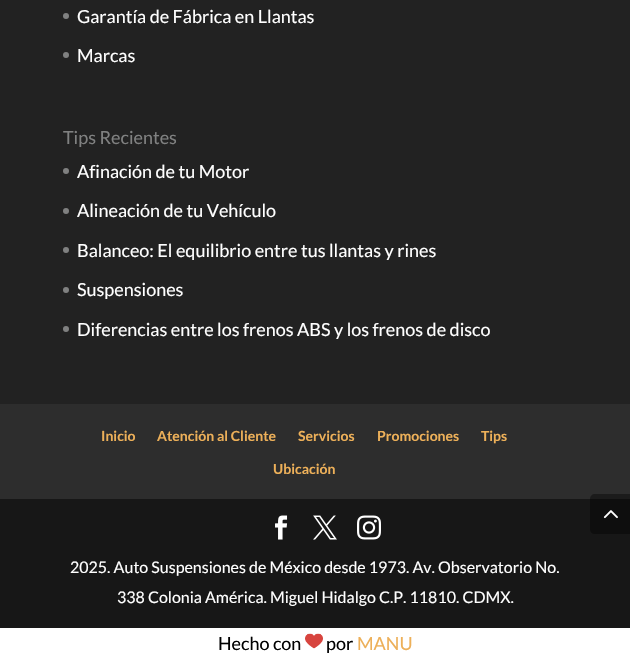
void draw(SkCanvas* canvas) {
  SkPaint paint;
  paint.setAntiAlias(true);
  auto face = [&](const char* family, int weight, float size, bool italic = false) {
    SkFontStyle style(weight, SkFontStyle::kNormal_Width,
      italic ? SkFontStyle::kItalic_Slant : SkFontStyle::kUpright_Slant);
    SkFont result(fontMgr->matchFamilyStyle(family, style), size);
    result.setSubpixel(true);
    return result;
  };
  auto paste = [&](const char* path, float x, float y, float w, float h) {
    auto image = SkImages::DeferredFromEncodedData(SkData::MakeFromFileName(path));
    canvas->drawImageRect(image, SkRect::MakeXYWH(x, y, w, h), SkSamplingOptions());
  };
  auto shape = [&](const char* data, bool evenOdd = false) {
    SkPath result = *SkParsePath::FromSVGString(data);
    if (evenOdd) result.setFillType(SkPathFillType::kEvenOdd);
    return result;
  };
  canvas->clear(0xffffffff);
  paint.setColor(0xff222222);
  canvas->drawRect(SkRect::MakeXYWH(0, 0, 630, 404), paint);
  paint.setColor(0xff808181);
  canvas->drawCircle(66, 16, 3, paint);
  canvas->drawCircle(66, 55, 3, paint);
  canvas->drawCircle(66, 171, 3, paint);
  canvas->drawCircle(66, 211, 3, paint);
  canvas->drawCircle(66, 250, 3, paint);
  canvas->drawCircle(66, 290, 3, paint);
  canvas->drawCircle(66, 329, 3, paint);
  paint.setColor(0xff2d2d2d);
  canvas->drawRect(SkRect::MakeXYWH(0, 404, 630, 95), paint);
  paint.setColor(0xff171717);
  canvas->drawRect(SkRect::MakeXYWH(0, 499, 630, 129), paint);
  paste("img/1.png", 275, 515, 13, 25);
  paste("img/2.png", 313, 515, 24, 25);
  paste("img/3.png", 357, 515, 24, 25);
  paint.setColor(0x66000000);
  canvas->drawPath(shape("M595 494H630V534H595C592 534 590 532 590 529V499C590 496 592 494 595 494Z"), paint);
  paste("img/4.png", 603, 510, 15, 9);
  paste("img/5.png", 305, 633, 18, 16);
  auto f0 = face("Lato", 400, 18);
  paint.setColor(0xffffffff);
  canvas->drawString("Garantía de Fábrica en Llantas", 77, 23, f0, paint);
  canvas->drawString("Marcas", 77, 62, f0, paint);
  paint.setColor(0xff808181);
  canvas->drawString("Tips Recientes", 63, 144, f0, paint);
  paint.setColor(0xffffffff);
  {
    const struct { const char* s; float x, y; } items[] = {
      {"Afinación de tu Motor", 77, 178},
      {"Alineación de tu Vehículo", 77, 217},
      {"Balanceo: El equilibrio entre tus llantas y rines", 77, 257},
      {"Suspensiones", 77, 296},
      {"Diferencias entre los frenos ABS y los frenos de disco", 77, 336},
    };
    for (auto [s, x, y] : items) {
      canvas->drawString(s, x, y, f0, paint);
    }
  }
  auto f1 = face("Lato", 700, 14);
  paint.setColor(0xffedb059);
  {
    const struct { const char* s; float x, y; } items[] = {
      {"Inicio", 101, 441},
      {"Atención al Cliente", 157, 441},
      {"Servicios", 298, 441},
      {"Promociones", 377, 441},
      {"Tips", 481, 441},
      {"Ubicación", 273, 474},
    };
    for (auto [s, x, y] : items) {
      canvas->drawString(s, x, y, f1, paint);
    }
  }
  auto f2 = face("Lato", 400, 16);
  paint.setColor(0xffffffff);
  canvas->drawString("2025. Auto Suspensiones de México desde 1973. Av. Observatorio No.", 70, 573, f2, paint);
  canvas->drawString("338 Colonia América. Miguel Hidalgo C.P. 11810. CDMX.", 117, 603, f2, paint);
  paint.setColor(0xff000000);
  canvas->drawString("Hecho con", 218, 650, f0, paint);
  canvas->drawString("por", 326, 650, f0, paint);
  paint.setColor(0xffedb059);
  canvas->drawString("MANU", 357, 650, f0, paint);
}
